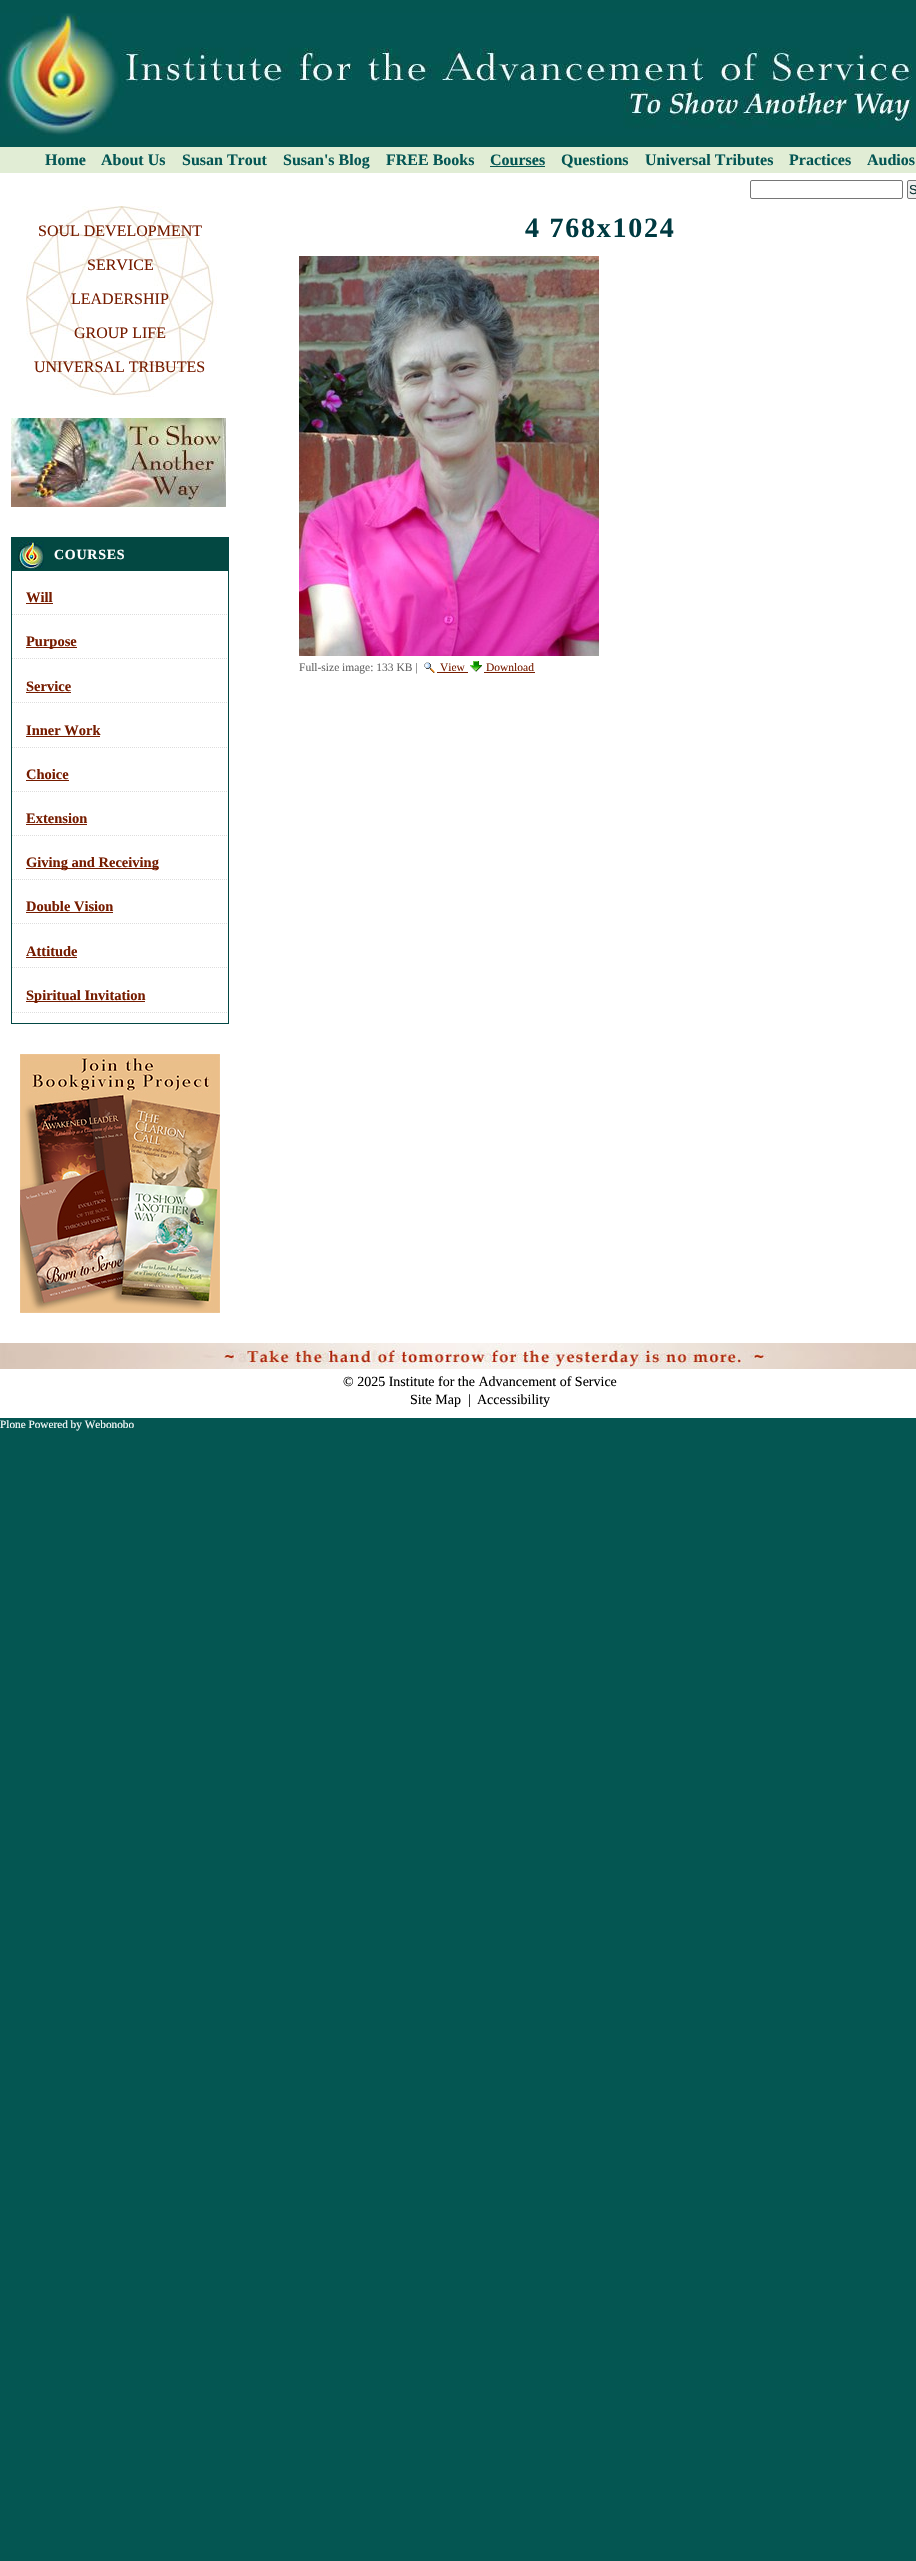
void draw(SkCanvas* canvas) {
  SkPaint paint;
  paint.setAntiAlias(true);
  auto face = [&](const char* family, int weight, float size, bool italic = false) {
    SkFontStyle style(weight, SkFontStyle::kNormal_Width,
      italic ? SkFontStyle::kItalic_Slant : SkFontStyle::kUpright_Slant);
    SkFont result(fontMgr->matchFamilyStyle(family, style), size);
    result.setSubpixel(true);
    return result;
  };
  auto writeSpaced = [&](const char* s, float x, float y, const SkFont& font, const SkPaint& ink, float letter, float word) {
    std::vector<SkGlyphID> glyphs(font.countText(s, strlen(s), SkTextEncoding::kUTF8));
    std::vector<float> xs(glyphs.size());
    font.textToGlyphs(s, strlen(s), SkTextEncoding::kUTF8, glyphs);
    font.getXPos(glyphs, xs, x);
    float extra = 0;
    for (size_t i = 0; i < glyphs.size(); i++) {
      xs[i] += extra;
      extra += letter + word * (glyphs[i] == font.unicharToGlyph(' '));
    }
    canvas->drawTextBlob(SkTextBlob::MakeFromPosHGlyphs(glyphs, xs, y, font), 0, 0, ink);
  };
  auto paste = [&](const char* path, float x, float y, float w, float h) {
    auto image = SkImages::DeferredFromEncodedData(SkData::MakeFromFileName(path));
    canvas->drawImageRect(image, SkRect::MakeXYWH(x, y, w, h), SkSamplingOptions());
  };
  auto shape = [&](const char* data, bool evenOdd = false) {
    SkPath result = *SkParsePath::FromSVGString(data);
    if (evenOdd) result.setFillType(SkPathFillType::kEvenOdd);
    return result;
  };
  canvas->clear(0xff045652);
  paste("img/1.png", 0, 13, 913, 123);
  {
    const struct { float x, y, w, h; SkColor color; } items[] = {
      {0, 147, 916, 26, 0xffe1edd5},
      {490, 166, 55, 1, 0xff045654},
      {0, 173, 916, 1170, 0xffffffff},
    };
    for (auto [x, y, w, h, color] : items) {
      paint.setColor(color);
      canvas->drawRect(SkRect::MakeXYWH(x, y, w, h), paint);
    }
  }
  paint.setStroke(true);
  paint.setStrokeWidth(1);
  paint.setColor(0xff767676);
  canvas->drawRoundRect(SkRect::MakeXYWH(750.5f, 180.5f, 152, 18), 1.5f, 1.5f, paint);
  paint.setStroke(false);
  paint.setColor(0xffefefef);
  canvas->drawRoundRect(SkRect::MakeXYWH(907.5f, 180.5f, 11, 18), 1.5f, 1.5f, paint);
  paint.setStroke(true);
  paint.setColor(0xff767676);
  canvas->drawRoundRect(SkRect::MakeXYWH(907.5f, 180.5f, 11, 18), 1.5f, 1.5f, paint);
  paste("img/2.png", 26, 206, 191, 191);
  paste("img/3.png", 11, 418, 215, 89);
  paint.setColor(0xff024744);
  canvas->drawRect(SkRect::MakeXYWH(11.5f, 537.5f, 217, 486), paint);
  paint.setStroke(false);
  paint.setColor(0xff034842);
  canvas->drawRect(SkRect::MakeXYWH(12, 538, 216, 33), paint);
  paste("img/4.png", 18, 541, 26, 28);
  paint.setStroke(true);
  paint.setColor(0xffdddddd);
  paint.setPathEffect(SkDashPathEffect::Make({{1, 1}}, 0));
  canvas->drawPath(shape("M12 614.5H228"), paint);
  paint.setPathEffect(nullptr);
  paint.setStroke(false);
  paint.setColor(0xff761c00);
  canvas->drawRect(SkRect::MakeXYWH(26, 603, 27, 1), paint);
  paint.setStroke(true);
  paint.setColor(0xffdddddd);
  paint.setPathEffect(SkDashPathEffect::Make({{1, 1}}, 0));
  canvas->drawPath(shape("M12 658.5H228"), paint);
  paint.setPathEffect(nullptr);
  paint.setStroke(false);
  paint.setColor(0xff761c00);
  canvas->drawRect(SkRect::MakeXYWH(26, 647, 51, 1), paint);
  paint.setStroke(true);
  paint.setColor(0xffdddddd);
  paint.setPathEffect(SkDashPathEffect::Make({{1, 1}}, 0));
  canvas->drawPath(shape("M12 702.5H228"), paint);
  paint.setPathEffect(nullptr);
  paint.setStroke(false);
  paint.setColor(0xff761c00);
  canvas->drawRect(SkRect::MakeXYWH(26, 692, 45, 1), paint);
  paint.setStroke(true);
  paint.setColor(0xffdddddd);
  paint.setPathEffect(SkDashPathEffect::Make({{1, 1}}, 0));
  canvas->drawPath(shape("M12 747.5H228"), paint);
  paint.setPathEffect(nullptr);
  paint.setStroke(false);
  paint.setColor(0xff761c00);
  canvas->drawRect(SkRect::MakeXYWH(26, 736, 74, 1), paint);
  paint.setStroke(true);
  paint.setColor(0xffdddddd);
  paint.setPathEffect(SkDashPathEffect::Make({{1, 1}}, 0));
  canvas->drawPath(shape("M12 791.5H228"), paint);
  paint.setPathEffect(nullptr);
  paint.setStroke(false);
  paint.setColor(0xff761c00);
  canvas->drawRect(SkRect::MakeXYWH(26, 780, 43, 1), paint);
  paint.setStroke(true);
  paint.setColor(0xffdddddd);
  paint.setPathEffect(SkDashPathEffect::Make({{1, 1}}, 0));
  canvas->drawPath(shape("M12 835.5H228"), paint);
  paint.setPathEffect(nullptr);
  paint.setStroke(false);
  paint.setColor(0xff761c00);
  canvas->drawRect(SkRect::MakeXYWH(26, 824, 61, 1), paint);
  paint.setStroke(true);
  paint.setColor(0xffdddddd);
  paint.setPathEffect(SkDashPathEffect::Make({{1, 1}}, 0));
  canvas->drawPath(shape("M12 879.5H228"), paint);
  paint.setPathEffect(nullptr);
  paint.setStroke(false);
  paint.setColor(0xff761c00);
  canvas->drawRect(SkRect::MakeXYWH(26, 868, 132, 1), paint);
  paint.setStroke(true);
  paint.setColor(0xffdddddd);
  paint.setPathEffect(SkDashPathEffect::Make({{1, 1}}, 0));
  canvas->drawPath(shape("M12 923.5H228"), paint);
  paint.setPathEffect(nullptr);
  paint.setStroke(false);
  paint.setColor(0xff761c00);
  canvas->drawRect(SkRect::MakeXYWH(26, 912, 87, 1), paint);
  paint.setStroke(true);
  paint.setColor(0xffdddddd);
  paint.setPathEffect(SkDashPathEffect::Make({{1, 1}}, 0));
  canvas->drawPath(shape("M12 967.5H228"), paint);
  paint.setPathEffect(nullptr);
  paint.setStroke(false);
  paint.setColor(0xff761c00);
  canvas->drawRect(SkRect::MakeXYWH(26, 957, 51, 1), paint);
  paint.setStroke(true);
  paint.setColor(0xffdddddd);
  paint.setPathEffect(SkDashPathEffect::Make({{1, 1}}, 0));
  canvas->drawPath(shape("M12 1012.5H228"), paint);
  paint.setPathEffect(nullptr);
  paint.setStroke(false);
  paint.setColor(0xff761c00);
  canvas->drawRect(SkRect::MakeXYWH(26, 1001, 119, 1), paint);
  paste("img/5.png", 20, 1054, 200, 259);
  paste("img/6.png", 299, 256, 300, 400);
  paste("img/7.png", 424, 662, 11, 11);
  canvas->drawRect(SkRect::MakeXYWH(437, 672, 31, 1), paint);
  paste("img/8.png", 470, 661, 12, 11);
  canvas->drawRect(SkRect::MakeXYWH(484, 672, 51, 1), paint);
  paint.setColor(0xffffffff);
  canvas->drawRect(SkRect::MakeXYWH(0, 1369, 916, 49), paint);
  paste("img/9.png", 0, 1343, 916, 26);
  auto f0 = face("Liberation Serif", 700, 16);
  paint.setColor(0xff045654);
  {
    const struct { const char* s; float x, y; } items[] = {
      {"Home", 45, 165},
      {"About Us", 101, 165},
      {"Susan Trout", 182, 165},
      {"Susan's Blog", 283, 165},
      {"FREE Books", 386, 165},
      {"Courses", 490, 165},
      {"Questions", 561, 165},
      {"Universal Tributes", 645, 165},
      {"Practices", 789, 165},
      {"Audios", 867, 165},
    };
    for (auto [s, x, y] : items) {
      canvas->drawString(s, x, y, f0, paint);
    }
  }
  auto f1 = face("Liberation Sans", 400, 13);
  paint.setColor(0xff0a3232);
  canvas->drawString("S", 909, 194, f1, paint);
  auto f2 = face("Liberation Serif", 400, 16);
  paint.setColor(0xff761c00);
  {
    const struct { const char* s; float x, y; } items[] = {
      {"SOUL DEVELOPMENT", 38, 236},
      {"SERVICE", 87, 270},
      {"LEADERSHIP", 71, 304},
      {"GROUP LIFE", 74, 338},
      {"UNIVERSAL TRIBUTES", 34, 372},
    };
    for (auto [s, x, y] : items) {
      canvas->drawString(s, x, y, f2, paint);
    }
  }
  auto f3 = face("Liberation Serif", 700, 14);
  paint.setColor(0xffffffff);
  writeSpaced("COURSES", 54, 559, f3, paint, 0.75f, 0);
  auto f4 = face("Liberation Serif", 700, 14.5f);
  paint.setColor(0xff761c00);
  {
    const struct { const char* s; float x, y; } items[] = {
      {"Will", 26, 602},
      {"Purpose", 26, 646},
      {"Service", 26, 691},
      {"Inner Work", 26, 735},
      {"Choice", 26, 779},
      {"Extension", 26, 823},
      {"Giving and Receiving", 26, 867},
      {"Double Vision", 26, 911},
      {"Attitude", 26, 956},
      {"Spiritual Invitation", 26, 1000},
    };
    for (auto [s, x, y] : items) {
      canvas->drawString(s, x, y, f4, paint);
    }
  }
  auto f5 = face("Liberation Serif", 700, 28);
  paint.setColor(0xff003a41);
  writeSpaced("4 768x1024", 525, 237, f5, paint, 1.75f, 0);
  auto f6 = face("Liberation Serif", 400, 11.5f);
  paint.setColor(0xff666666);
  canvas->drawString("Full-size image: 133 KB |", 299, 671, f6, paint);
  paint.setColor(0xff761c00);
  canvas->drawString("View", 440, 671, f6, paint);
  canvas->drawString("Download", 486, 671, f6, paint);
  auto f7 = face("Liberation Serif", 400, 14);
  paint.setColor(0xff000000);
  {
    const struct { const char* s; float x, y; } items[] = {
      {"© 2025 Institute for the Advancement of Service", 343, 1386},
      {"Site Map", 410, 1404},
      {"|", 468, 1404},
      {"Accessibility", 477, 1404},
    };
    for (auto [s, x, y] : items) {
      canvas->drawString(s, x, y, f7, paint);
    }
  }
  auto f8 = face("Liberation Serif", 400, 11.25f);
  paint.setColor(0xffffffff);
  canvas->drawString("Plone Powered by Webonobo", 0, 1428, f8, paint);
}
